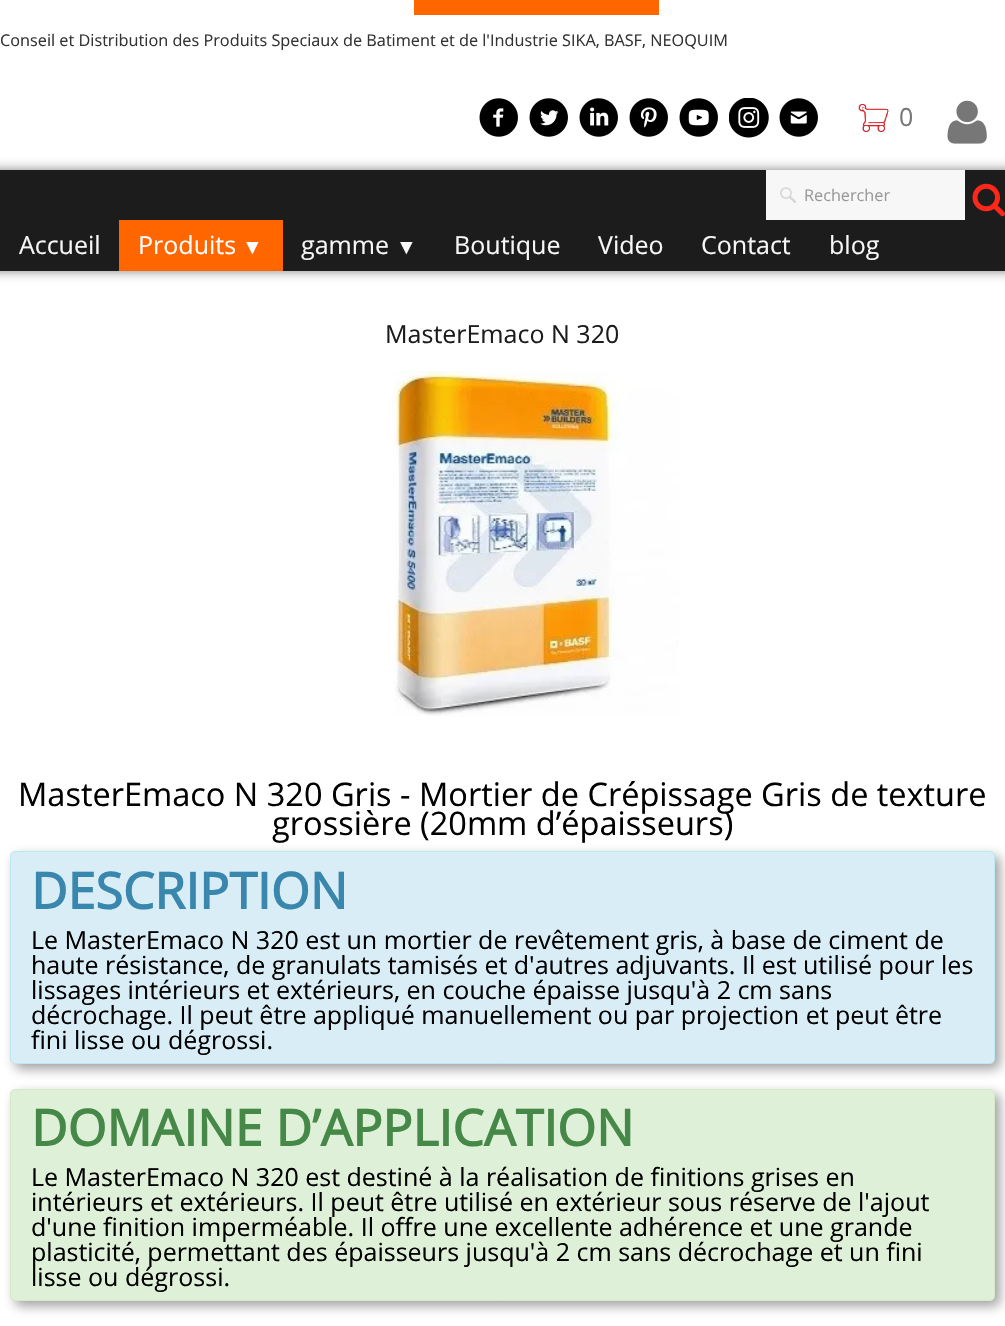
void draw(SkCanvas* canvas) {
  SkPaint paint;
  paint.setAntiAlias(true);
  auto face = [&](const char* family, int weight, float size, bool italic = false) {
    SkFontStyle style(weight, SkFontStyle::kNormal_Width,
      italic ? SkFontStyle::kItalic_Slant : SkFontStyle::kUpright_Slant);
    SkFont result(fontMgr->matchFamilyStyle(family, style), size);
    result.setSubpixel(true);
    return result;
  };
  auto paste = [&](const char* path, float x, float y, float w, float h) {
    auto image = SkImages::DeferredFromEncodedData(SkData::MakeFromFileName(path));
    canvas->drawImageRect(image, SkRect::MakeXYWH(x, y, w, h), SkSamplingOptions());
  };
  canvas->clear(0xffffffff);
  paint.setColor(0xffff6600);
  canvas->drawRect(SkRect::MakeXYWH(414, 0, 245, 15), paint);
  paste("img/1.png", 479, 98, 39, 39);
  paste("img/2.png", 529, 98, 39, 39);
  paste("img/3.png", 579, 98, 39, 39);
  paste("img/4.png", 629, 98, 39, 39);
  paste("img/5.png", 679, 98, 39, 39);
  paste("img/6.png", 729, 98, 40, 40);
  paste("img/7.png", 779, 98, 39, 39);
  paste("img/8.png", 858, 103, 31, 29);
  paste("img/9.png", 947, 100, 40, 44);
  paint.setColor(0x80000000);
  paint.setMaskFilter(SkMaskFilter::MakeBlur(kNormal_SkBlurStyle, 6));
  canvas->drawRoundRect(SkRect::MakeXYWH(-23, 170, 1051, 101), 5, 5, paint);
  paint.setMaskFilter(nullptr);
  paint.setColor(0xff1c1c1c);
  canvas->drawRect(SkRect::MakeXYWH(0, 170, 1005, 101), paint);
  paint.setColor(0xfff7f7f7);
  canvas->drawRect(SkRect::MakeXYWH(766, 170, 199, 50), paint);
  paste("img/10.png", 780, 187, 16, 16);
  paste("img/11.png", 972, 183, 33, 34);
  paint.setColor(0xffff6600);
  canvas->drawRect(SkRect::MakeXYWH(119, 220, 164, 51), paint);
  paste("img/12.png", 394, 371, 285, 345);
  paint.setColor(0xbf808080);
  paint.setMaskFilter(SkMaskFilter::MakeBlur(kNormal_SkBlurStyle, 6));
  canvas->drawRoundRect(SkRect::MakeXYWH(15, 856, 985, 213), 5, 5, paint);
  paint.setMaskFilter(nullptr);
  paint.setColor(0xffd9edf7);
  canvas->drawRoundRect(SkRect::MakeXYWH(10.5f, 851.5f, 984, 212), 4.5f, 4.5f, paint);
  paint.setStroke(true);
  paint.setStrokeWidth(1);
  paint.setColor(0xffbce8f1);
  canvas->drawRoundRect(SkRect::MakeXYWH(10.5f, 851.5f, 984, 212), 4.5f, 4.5f, paint);
  paint.setStroke(false);
  paint.setColor(0xbf808080);
  paint.setMaskFilter(SkMaskFilter::MakeBlur(kNormal_SkBlurStyle, 6));
  canvas->drawRoundRect(SkRect::MakeXYWH(15, 1094, 985, 212), 5, 5, paint);
  paint.setMaskFilter(nullptr);
  paint.setColor(0xffdff0d8);
  canvas->drawRoundRect(SkRect::MakeXYWH(10.5f, 1089.5f, 984, 211), 4.5f, 4.5f, paint);
  paint.setStroke(true);
  paint.setColor(0xffd6e9c6);
  canvas->drawRoundRect(SkRect::MakeXYWH(10.5f, 1089.5f, 984, 211), 4.5f, 4.5f, paint);
  auto f0 = face("Open Sans", 400, 16.25f);
  paint.setStroke(false);
  paint.setColor(0xff333333);
  canvas->drawString("Conseil et Distribution des Produits Speciaux de Batiment et de l'Industrie SIKA, BASF, NEOQUIM", 0, 46, f0, paint);
  auto f1 = face("Open Sans", 400, 25);
  paint.setColor(0xff777777);
  canvas->drawString("0", 899, 126, f1, paint);
  paint.setColor(0xff999999);
  canvas->drawString("Rechercher", 804, 201, f0, paint);
  paint.setColor(0xfff7f7f7);
  canvas->drawString("Accueil", 19, 254, f1, paint);
  paint.setColor(0xffffffff);
  canvas->drawString("Produits", 138, 254, f1, paint);
  auto f2 = face("Liberation Serif", 400, 21);
  canvas->drawString("▼", 242, 254, f2, paint);
  paint.setColor(0xfff7f7f7);
  canvas->drawString("gamme", 301, 254, f1, paint);
  canvas->drawString("▼", 396, 254, f2, paint);
  {
    const struct { const char* s; float x, y; } items[] = {
      {"Boutique", 454, 254},
      {"Video", 598, 254},
      {"Contact", 701, 254},
      {"blog", 829, 254},
    };
    for (auto [s, x, y] : items) {
      canvas->drawString(s, x, y, f1, paint);
    }
  }
  paint.setColor(0xff1c1c1c);
  canvas->drawString("MasterEmaco N 320", 385, 343, f1, paint);
  auto f3 = face("Open Sans", 400, 32.5f);
  paint.setColor(0xff000000);
  canvas->drawString("MasterEmaco N 320 Gris - Mortier de Crépissage Gris de texture", 18, 806, f3, paint);
  canvas->drawString("grossière (20mm d’épaisseurs)", 272, 835, f3, paint);
  auto f4 = face("Open Sans", 700, 50);
  paint.setColor(0xff3a87ad);
  canvas->drawString("DESCRIPTION", 31, 909, f4, paint);
  paint.setColor(0xff000000);
  {
    const struct { const char* s; float x, y; } items[] = {
      {"Le MasterEmaco N 320 est un mortier de revêtement gris, à base de ciment de", 31, 949},
      {"haute résistance, de granulats tamisés et d'autres adjuvants. Il est utilisé pour les", 31, 974},
      {"lissages intérieurs et extérieurs, en couche épaisse jusqu'à 2 cm sans", 31, 999},
      {"décrochage. Il peut être appliqué manuellement ou par projection et peut être", 31, 1024},
      {"fini lisse ou dégrossi.", 31, 1049},
    };
    for (auto [s, x, y] : items) {
      canvas->drawString(s, x, y, f1, paint);
    }
  }
  paint.setColor(0xff468847);
  canvas->drawString("DOMAINE D’APPLICATION", 31, 1146, f4, paint);
  paint.setColor(0xff000000);
  {
    const struct { const char* s; float x, y; } items[] = {
      {"Le MasterEmaco N 320 est destiné à la réalisation de finitions grises en", 31, 1186},
      {"intérieurs et extérieurs. Il peut être utilisé en extérieur sous réserve de l'ajout", 31, 1211},
      {"d'une finition imperméable. Il offre une excellente adhérence et une grande", 31, 1236},
      {"plasticité, permettant des épaisseurs jusqu'à 2 cm sans décrochage et un fini", 31, 1261},
      {"lisse ou dégrossi.", 31, 1286},
    };
    for (auto [s, x, y] : items) {
      canvas->drawString(s, x, y, f1, paint);
    }
  }
}
